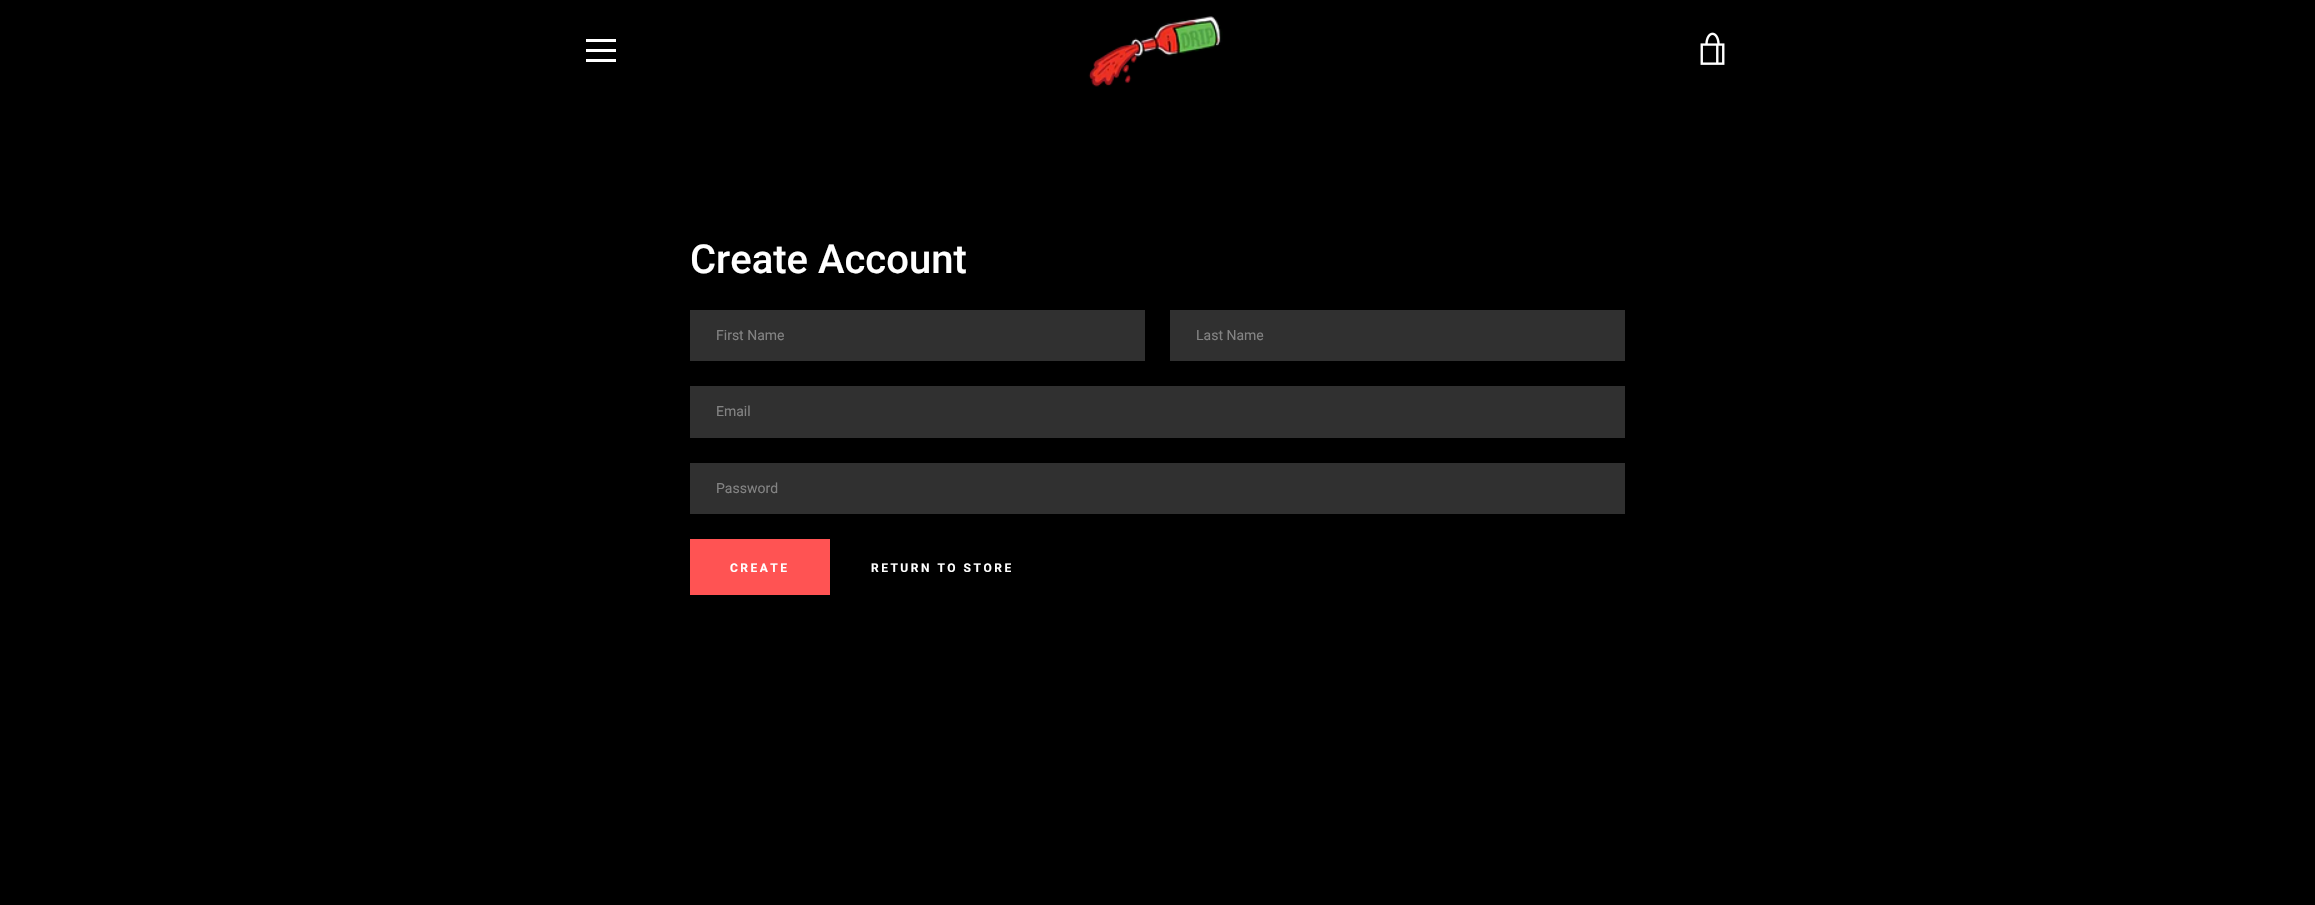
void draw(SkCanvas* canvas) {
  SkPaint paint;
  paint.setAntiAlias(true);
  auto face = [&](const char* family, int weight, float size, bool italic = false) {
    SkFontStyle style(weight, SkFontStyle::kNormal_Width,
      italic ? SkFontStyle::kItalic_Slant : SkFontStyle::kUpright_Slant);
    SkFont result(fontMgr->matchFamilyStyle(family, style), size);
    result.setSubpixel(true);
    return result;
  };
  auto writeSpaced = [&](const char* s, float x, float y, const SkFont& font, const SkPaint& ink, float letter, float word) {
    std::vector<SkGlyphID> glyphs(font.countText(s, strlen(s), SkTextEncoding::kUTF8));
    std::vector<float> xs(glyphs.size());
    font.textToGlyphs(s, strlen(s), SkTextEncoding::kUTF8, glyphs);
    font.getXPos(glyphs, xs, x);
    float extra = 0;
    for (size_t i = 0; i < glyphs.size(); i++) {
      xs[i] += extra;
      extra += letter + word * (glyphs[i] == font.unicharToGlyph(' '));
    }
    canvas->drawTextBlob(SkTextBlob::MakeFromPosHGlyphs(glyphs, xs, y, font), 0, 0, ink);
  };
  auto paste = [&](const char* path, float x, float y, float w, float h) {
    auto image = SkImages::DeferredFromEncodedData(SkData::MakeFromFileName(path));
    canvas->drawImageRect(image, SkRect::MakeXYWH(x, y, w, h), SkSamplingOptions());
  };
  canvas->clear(0xff000000);
  {
    const struct { float x, y, w, h; SkColor color; } items[] = {
      {586, 39, 30, 3, 0xffffffff},
      {586, 49, 30, 3, 0xffffffff},
      {586, 59, 30, 3, 0xffffffff},
    };
    for (auto [x, y, w, h, color] : items) {
      paint.setColor(color);
      canvas->drawRect(SkRect::MakeXYWH(x, y, w, h), paint);
    }
  }
  paste("img/1.png", 1088, 16, 135, 71);
  paste("img/2.png", 1700, 32, 25, 33);
  {
    const struct { float x, y, w, h; SkColor color; } items[] = {
      {690, 310, 455, 51, 0xff303030},
      {1170, 310, 455, 51, 0xff303030},
      {690, 386, 935, 52, 0xff303030},
      {690, 463, 935, 51, 0xff303030},
      {690, 539, 140, 56, 0xffff5353},
    };
    for (auto [x, y, w, h, color] : items) {
      paint.setColor(color);
      canvas->drawRect(SkRect::MakeXYWH(x, y, w, h), paint);
    }
  }
  auto f0 = face("Roboto", 500, 40);
  paint.setColor(0xffffffff);
  canvas->drawString("Create Account", 690, 273, f0, paint);
  auto f1 = face("Roboto", 400, 14);
  paint.setColor(0xff838383);
  {
    const struct { const char* s; float x, y; } items[] = {
      {"First Name", 716, 340},
      {"Last Name", 1196, 340},
      {"Email", 716, 416},
      {"Password", 716, 493},
    };
    for (auto [s, x, y] : items) {
      canvas->drawString(s, x, y, f1, paint);
    }
  }
  auto f2 = face("Roboto", 700, 12);
  paint.setColor(0xffffffff);
  writeSpaced("CREATE", 730, 572, f2, paint, 2.5f, 0);
  writeSpaced("RETURN TO STORE", 871, 572, f2, paint, 2.5f, 0);
}
